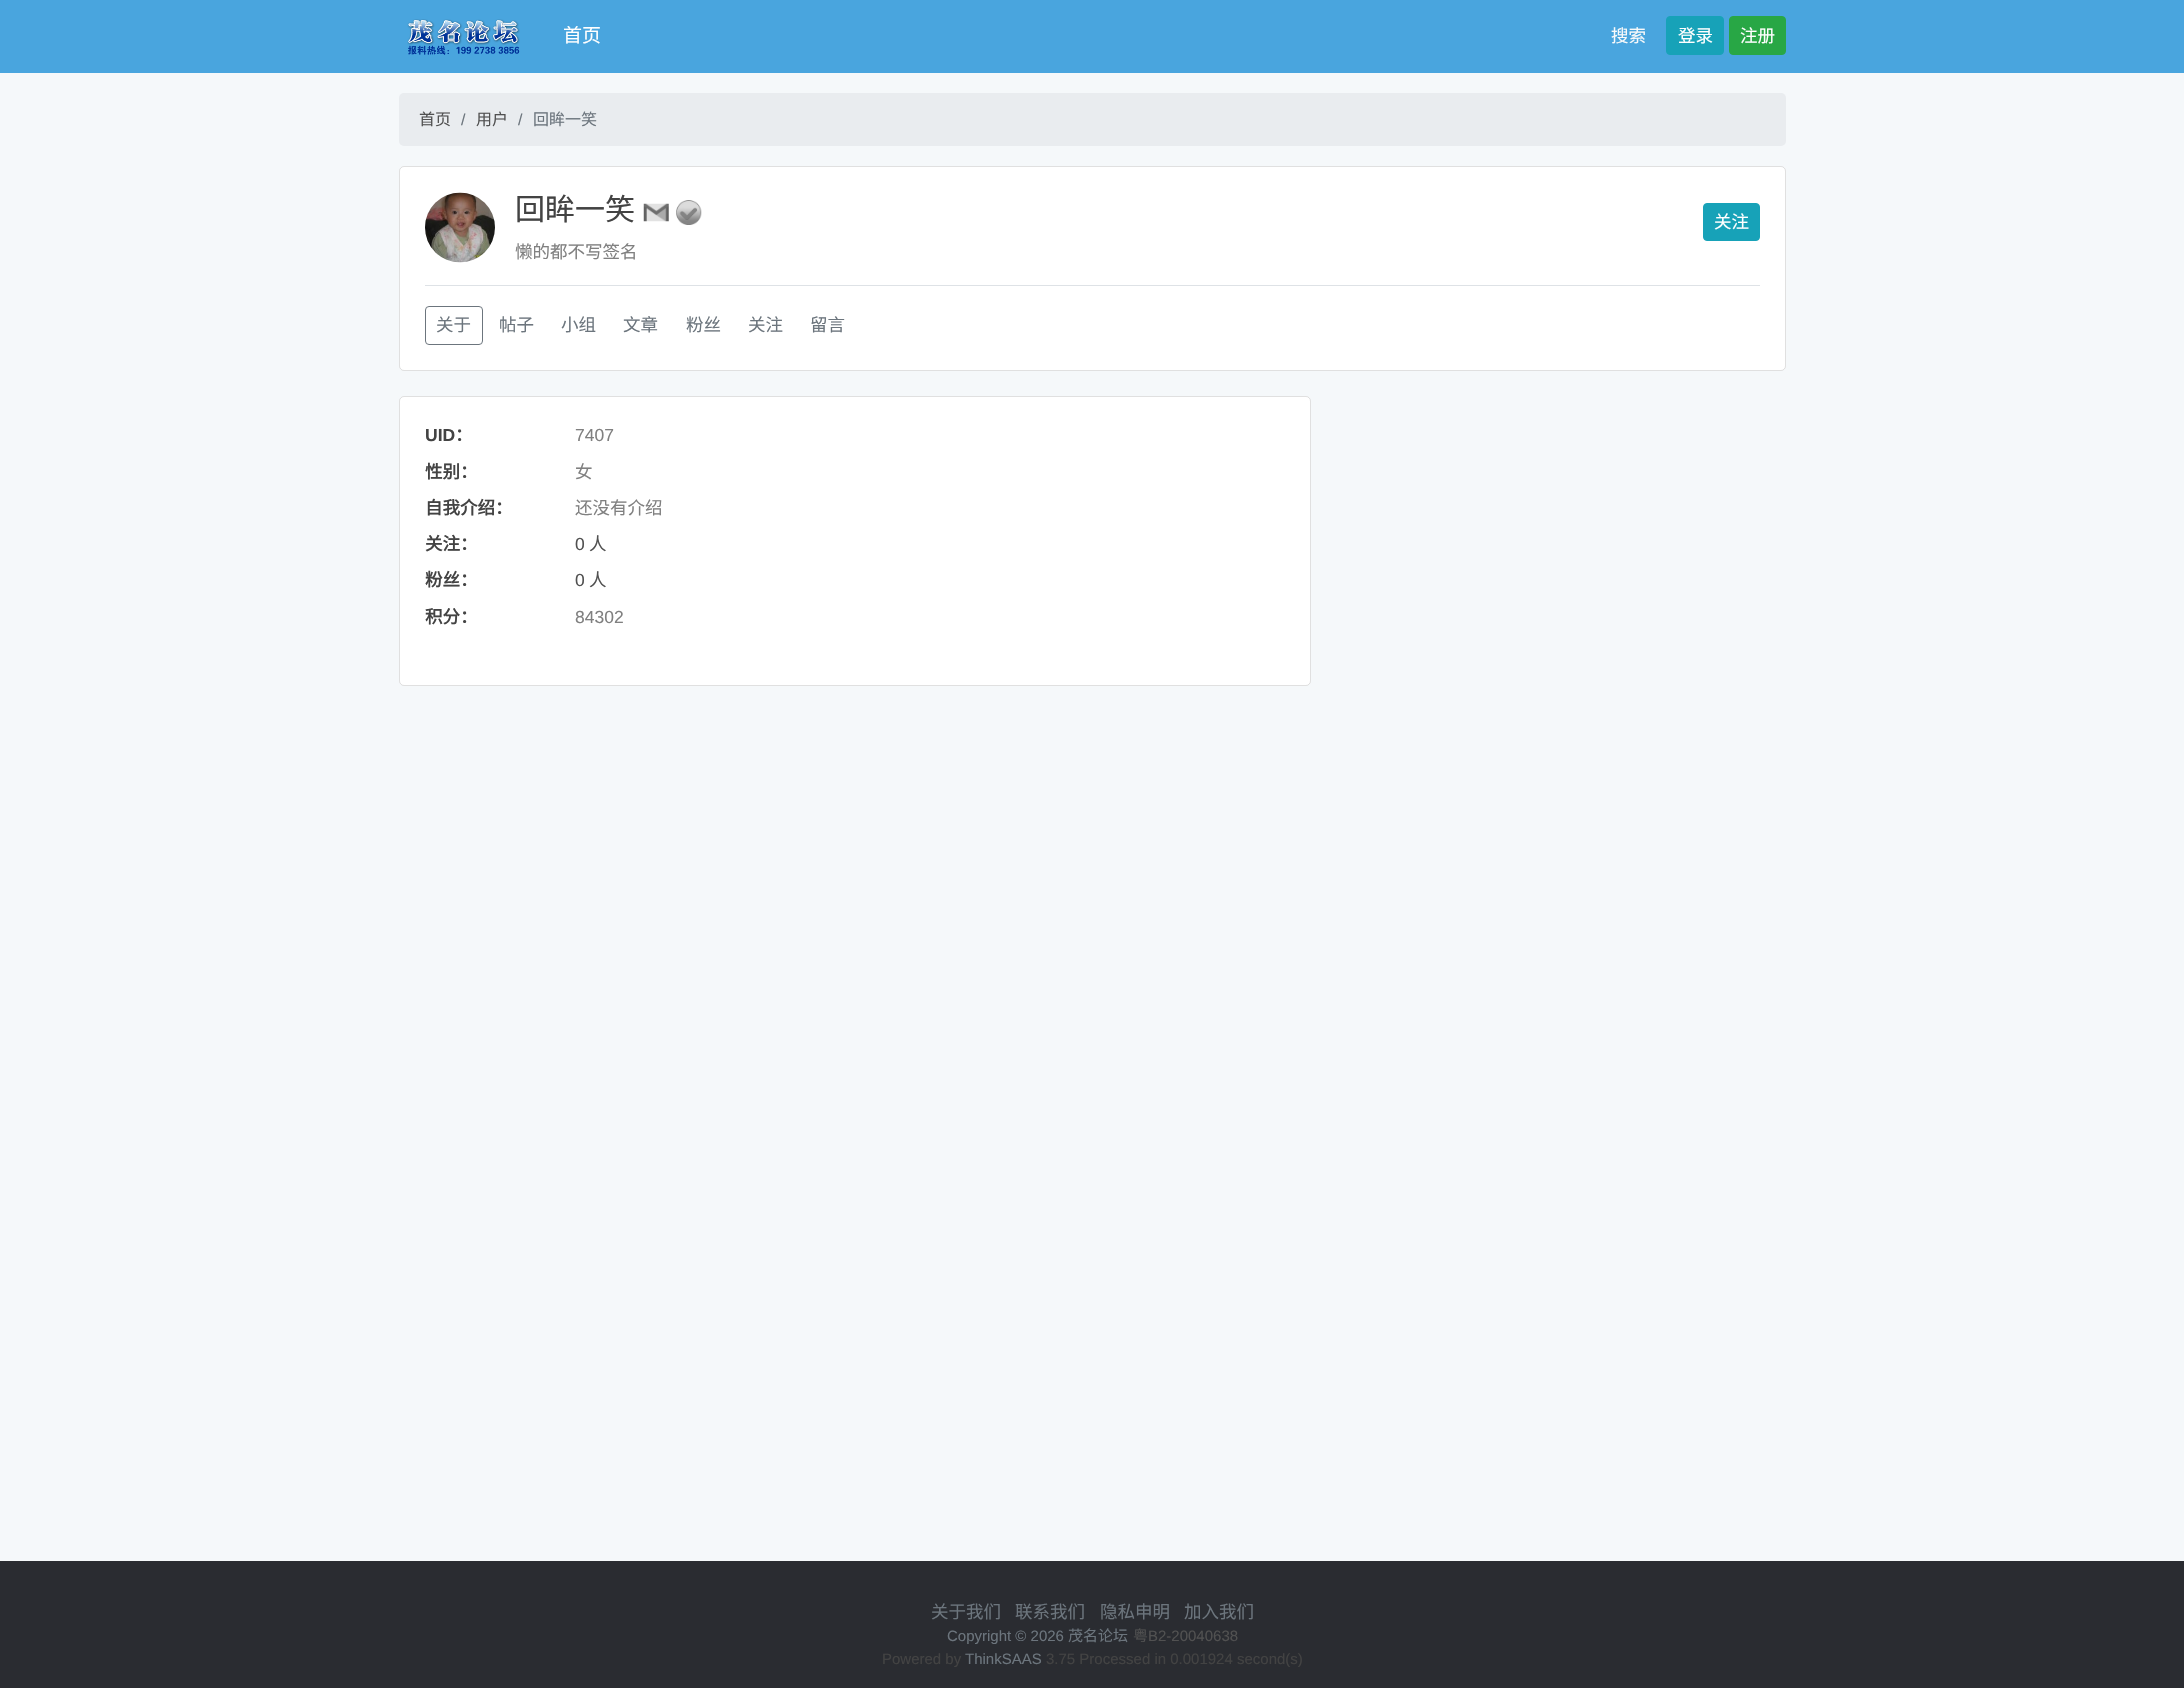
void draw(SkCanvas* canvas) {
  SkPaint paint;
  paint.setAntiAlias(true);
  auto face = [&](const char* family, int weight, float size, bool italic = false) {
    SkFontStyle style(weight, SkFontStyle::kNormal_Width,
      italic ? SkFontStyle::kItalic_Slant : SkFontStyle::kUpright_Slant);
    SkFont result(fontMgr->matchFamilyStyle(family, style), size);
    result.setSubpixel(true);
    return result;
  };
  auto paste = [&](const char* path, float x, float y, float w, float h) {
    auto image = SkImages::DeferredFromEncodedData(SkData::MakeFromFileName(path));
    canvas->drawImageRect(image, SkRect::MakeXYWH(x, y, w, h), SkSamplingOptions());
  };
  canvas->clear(0xfff5f8fa);
  paint.setColor(0xff49a5de);
  canvas->drawRect(SkRect::MakeXYWH(0, 0, 2184, 73), paint);
  paste("img/1.png", 407, 19, 113, 36);
  paint.setColor(0xff17a2b8);
  canvas->drawRoundRect(SkRect::MakeXYWH(1666.5f, 16.5f, 57, 38), 3.5f, 3.5f, paint);
  paint.setStroke(true);
  paint.setStrokeWidth(1);
  canvas->drawRoundRect(SkRect::MakeXYWH(1666.5f, 16.5f, 57, 38), 3.5f, 3.5f, paint);
  paint.setStroke(false);
  paint.setColor(0xff28a745);
  canvas->drawRoundRect(SkRect::MakeXYWH(1729.5f, 16.5f, 56, 38), 3.5f, 3.5f, paint);
  paint.setStroke(true);
  canvas->drawRoundRect(SkRect::MakeXYWH(1729.5f, 16.5f, 56, 38), 3.5f, 3.5f, paint);
  paint.setStroke(false);
  paint.setColor(0xffe9ecef);
  canvas->drawRoundRect(SkRect::MakeXYWH(399, 93, 1387, 53), 5, 5, paint);
  paint.setColor(0xffffffff);
  canvas->drawRoundRect(SkRect::MakeXYWH(399, 166, 1387, 205), 5, 5, paint);
  paint.setStroke(true);
  paint.setColor(0x1f000000);
  canvas->drawRoundRect(SkRect::MakeXYWH(399.5f, 166.5f, 1386, 204), 4.5f, 4.5f, paint);
  paste("img/2.png", 425, 192, 70, 71);
  paste("img/3.png", 643, 203, 26, 19);
  paste("img/4.png", 676, 200, 26, 25);
  paint.setStroke(false);
  paint.setColor(0xff17a2b8);
  canvas->drawRoundRect(SkRect::MakeXYWH(1703.5f, 203.5f, 56, 37), 3.5f, 3.5f, paint);
  paint.setStroke(true);
  canvas->drawRoundRect(SkRect::MakeXYWH(1703.5f, 203.5f, 56, 37), 3.5f, 3.5f, paint);
  paint.setStroke(false);
  paint.setColor(0xffdee2e6);
  canvas->drawRect(SkRect::MakeXYWH(425, 285, 1335, 1), paint);
  paint.setStroke(true);
  paint.setColor(0xff6c757d);
  canvas->drawRoundRect(SkRect::MakeXYWH(425.5f, 306.5f, 57, 38), 3.5f, 3.5f, paint);
  paint.setStroke(false);
  paint.setColor(0xffffffff);
  canvas->drawRoundRect(SkRect::MakeXYWH(399, 396, 912, 290), 5, 5, paint);
  paint.setStroke(true);
  paint.setColor(0x1f000000);
  canvas->drawRoundRect(SkRect::MakeXYWH(399.5f, 396.5f, 911, 289), 4.5f, 4.5f, paint);
  paint.setStroke(false);
  paint.setColor(0xff2a2c31);
  canvas->drawRect(SkRect::MakeXYWH(0, 1561, 2184, 127), paint);
  auto f0 = face("Noto Sans CJK SC", 400, 19);
  paint.setColor(0xffffffff);
  canvas->drawString("首页", 563, 42, f0, paint);
  auto f1 = face("Noto Sans CJK SC", 400, 17.5f);
  paint.setColor(0xfff8f9fa);
  canvas->drawString("搜索", 1611, 42, f1, paint);
  paint.setColor(0xffffffff);
  canvas->drawString("登录", 1678, 42, f1, paint);
  canvas->drawString("注册", 1740, 42, f1, paint);
  auto f2 = face("Noto Sans CJK SC", 400, 16);
  paint.setColor(0xff515151);
  canvas->drawString("首页", 419, 125, f2, paint);
  auto f3 = face("Liberation Sans", 400, 16);
  paint.setColor(0xff6c757d);
  canvas->drawString("/", 461, 125, f3, paint);
  paint.setColor(0xff515151);
  canvas->drawString("用户", 476, 125, f2, paint);
  paint.setColor(0xff6c757d);
  canvas->drawString("/", 518, 125, f3, paint);
  canvas->drawString("回眸一笑", 533, 125, f2, paint);
  auto f4 = face("Noto Sans CJK SC", 400, 30);
  paint.setColor(0xff434343);
  canvas->drawString("回眸一笑", 515, 220, f4, paint);
  paint.setColor(0xff808080);
  canvas->drawString("懒的都不写签名", 515, 258, f1, paint);
  paint.setColor(0xffffffff);
  canvas->drawString("关注", 1714, 228, f1, paint);
  paint.setColor(0xff6c757d);
  {
    const struct { const char* s; float x, y; } items[] = {
      {"关于", 436, 331},
      {"帖子", 499, 331},
      {"小组", 561, 331},
      {"文章", 623, 331},
      {"粉丝", 686, 331},
      {"关注", 748, 331},
      {"留言", 810, 331},
    };
    for (auto [s, x, y] : items) {
      canvas->drawString(s, x, y, f1, paint);
    }
  }
  auto f5 = face("Liberation Sans", 700, 17.5f);
  paint.setColor(0xff434343);
  canvas->drawString("UID", 425, 441, f5, paint);
  auto f6 = face("Noto Sans CJK SC", 700, 17.5f);
  canvas->drawString("：", 455, 441, f6, paint);
  auto f7 = face("Liberation Sans", 400, 17.5f);
  paint.setColor(0xff808080);
  canvas->drawString("7407", 575, 441, f7, paint);
  paint.setColor(0xff434343);
  canvas->drawString("性别：", 425, 478, f6, paint);
  paint.setColor(0xff808080);
  canvas->drawString("女", 575, 478, f1, paint);
  paint.setColor(0xff434343);
  canvas->drawString("自我介绍：", 425, 514, f6, paint);
  paint.setColor(0xff808080);
  canvas->drawString("还没有介绍", 575, 514, f1, paint);
  paint.setColor(0xff434343);
  canvas->drawString("关注：", 425, 550, f6, paint);
  paint.setColor(0xff515151);
  canvas->drawString("0", 575, 550, f7, paint);
  canvas->drawString("人", 589, 550, f1, paint);
  paint.setColor(0xff434343);
  canvas->drawString("粉丝：", 425, 586, f6, paint);
  paint.setColor(0xff515151);
  canvas->drawString("0", 575, 586, f7, paint);
  canvas->drawString("人", 589, 586, f1, paint);
  paint.setColor(0xff434343);
  canvas->drawString("积分：", 425, 623, f6, paint);
  paint.setColor(0xff808080);
  canvas->drawString("84302", 575, 623, f7, paint);
  paint.setColor(0xff6c757d);
  {
    const struct { const char* s; float x, y; } items[] = {
      {"关于我们", 931, 1618},
      {"联系我们", 1015, 1618},
      {"隐私申明", 1100, 1618},
      {"加入我们", 1184, 1618},
    };
    for (auto [s, x, y] : items) {
      canvas->drawString(s, x, y, f1, paint);
    }
  }
  auto f8 = face("Liberation Sans", 400, 15);
  canvas->drawString("Copyright © 2026", 947, 1641, f8, paint);
  auto f9 = face("Noto Sans CJK SC", 400, 15);
  canvas->drawString("茂名论坛", 1068, 1641, f9, paint);
  paint.setColor(0xff515151);
  canvas->drawString("粤", 1133, 1641, f9, paint);
  canvas->drawString("B2-20040638", 1148, 1641, f8, paint);
  paint.setColor(0xff434343);
  canvas->drawString("Powered by", 882, 1664, f8, paint);
  paint.setColor(0xff6c757d);
  canvas->drawString("ThinkSAAS", 965, 1664, f8, paint);
  paint.setColor(0xff434343);
  canvas->drawString("3.75 Processed in 0.001924 second(s)", 1046, 1664, f8, paint);
}
